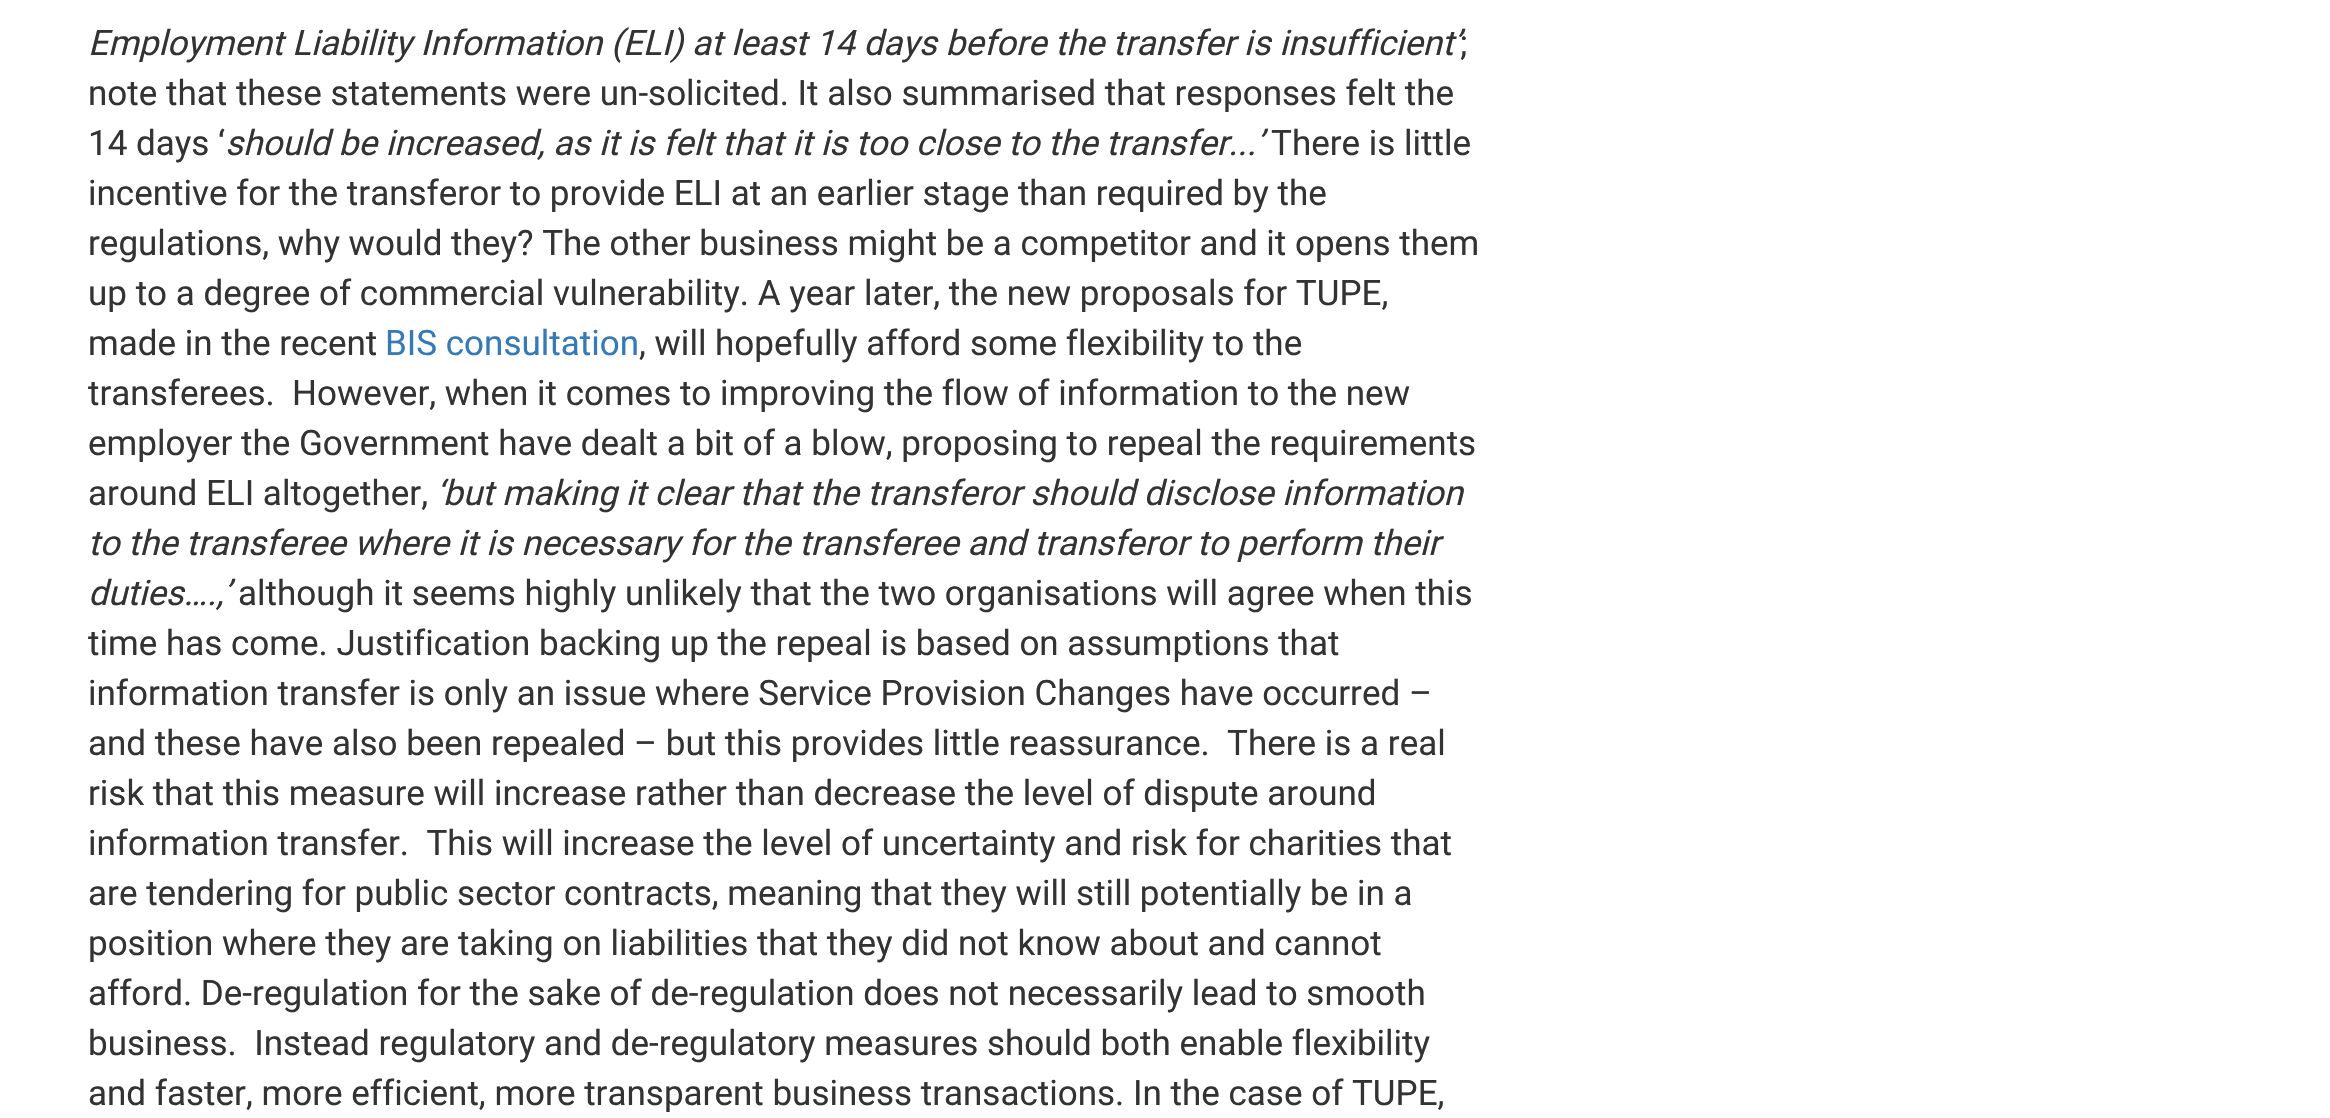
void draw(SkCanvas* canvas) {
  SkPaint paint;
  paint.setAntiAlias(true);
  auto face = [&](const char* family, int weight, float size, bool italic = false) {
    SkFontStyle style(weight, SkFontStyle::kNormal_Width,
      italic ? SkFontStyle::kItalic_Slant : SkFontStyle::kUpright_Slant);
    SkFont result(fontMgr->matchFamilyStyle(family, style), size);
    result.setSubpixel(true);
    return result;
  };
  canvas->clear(0xffffffff);
  auto f0 = face("Roboto", 400, 35, true);
  paint.setColor(0xff333333);
  canvas->drawString("Employment Liability Information (ELI) at least 14 days before the transfer is insufficient’", 88, 55, f0, paint);
  auto f1 = face("Roboto", 400, 35);
  {
    const struct { const char* s; float x, y; } items[] = {
      {";", 1460, 55},
      {"note that these statements were un-solicited. It also summarised that responses felt the", 88, 105},
      {"14 days ‘", 88, 155},
    };
    for (auto [s, x, y] : items) {
      canvas->drawString(s, x, y, f1, paint);
    }
  }
  canvas->drawString("should be increased, as it is felt that it is too close to the transfer...’", 225, 155, f0, paint);
  {
    const struct { const char* s; float x, y; } items[] = {
      {"There is little", 1271, 155},
      {"incentive for the transferor to provide ELI at an earlier stage than required by the", 88, 205},
      {"regulations, why would they? The other business might be a competitor and it opens them", 88, 255},
      {"up to a degree of commercial vulnerability. A year later, the new proposals for TUPE,", 88, 305},
      {"made in the recent", 88, 355},
    };
    for (auto [s, x, y] : items) {
      canvas->drawString(s, x, y, f1, paint);
    }
  }
  paint.setColor(0xff337ab7);
  canvas->drawString("BIS consultation", 385, 355, f1, paint);
  paint.setColor(0xff333333);
  {
    const struct { const char* s; float x, y; } items[] = {
      {", will hopefully afford some flexibility to the", 639, 355},
      {"transferees.  However, when it comes to improving the flow of information to the new", 88, 405},
      {"employer the Government have dealt a bit of a blow, proposing to repeal the requirements", 88, 455},
      {"around ELI altogether,", 88, 505},
    };
    for (auto [s, x, y] : items) {
      canvas->drawString(s, x, y, f1, paint);
    }
  }
  {
    const struct { const char* s; float x, y; } items[] = {
      {"‘but making it clear that the transferor should disclose information", 436, 505},
      {"to the transferee where it is necessary for the transferee and transferor to perform their", 88, 555},
      {"duties….,’", 88, 605},
    };
    for (auto [s, x, y] : items) {
      canvas->drawString(s, x, y, f0, paint);
    }
  }
  {
    const struct { const char* s; float x, y; } items[] = {
      {"although it seems highly unlikely that the two organisations will agree when this", 238, 605},
      {"time has come. Justification backing up the repeal is based on assumptions that", 88, 655},
      {"information transfer is only an issue where Service Provision Changes have occurred –", 88, 705},
      {"and these have also been repealed – but this provides little reassurance.  There is a real", 88, 755},
      {"risk that this measure will increase rather than decrease the level of dispute around", 88, 805},
      {"information transfer.  This will increase the level of uncertainty and risk for charities that", 88, 855},
      {"are tendering for public sector contracts, meaning that they will still potentially be in a", 88, 905},
      {"position where they are taking on liabilities that they did not know about and cannot", 88, 955},
      {"afford. De-regulation for the sake of de-regulation does not necessarily lead to smooth", 88, 1005},
      {"business.  Instead regulatory and de-regulatory measures should both enable flexibility", 88, 1055},
      {"and faster, more efficient, more transparent business transactions. In the case of TUPE,", 88, 1105},
    };
    for (auto [s, x, y] : items) {
      canvas->drawString(s, x, y, f1, paint);
    }
  }
}
